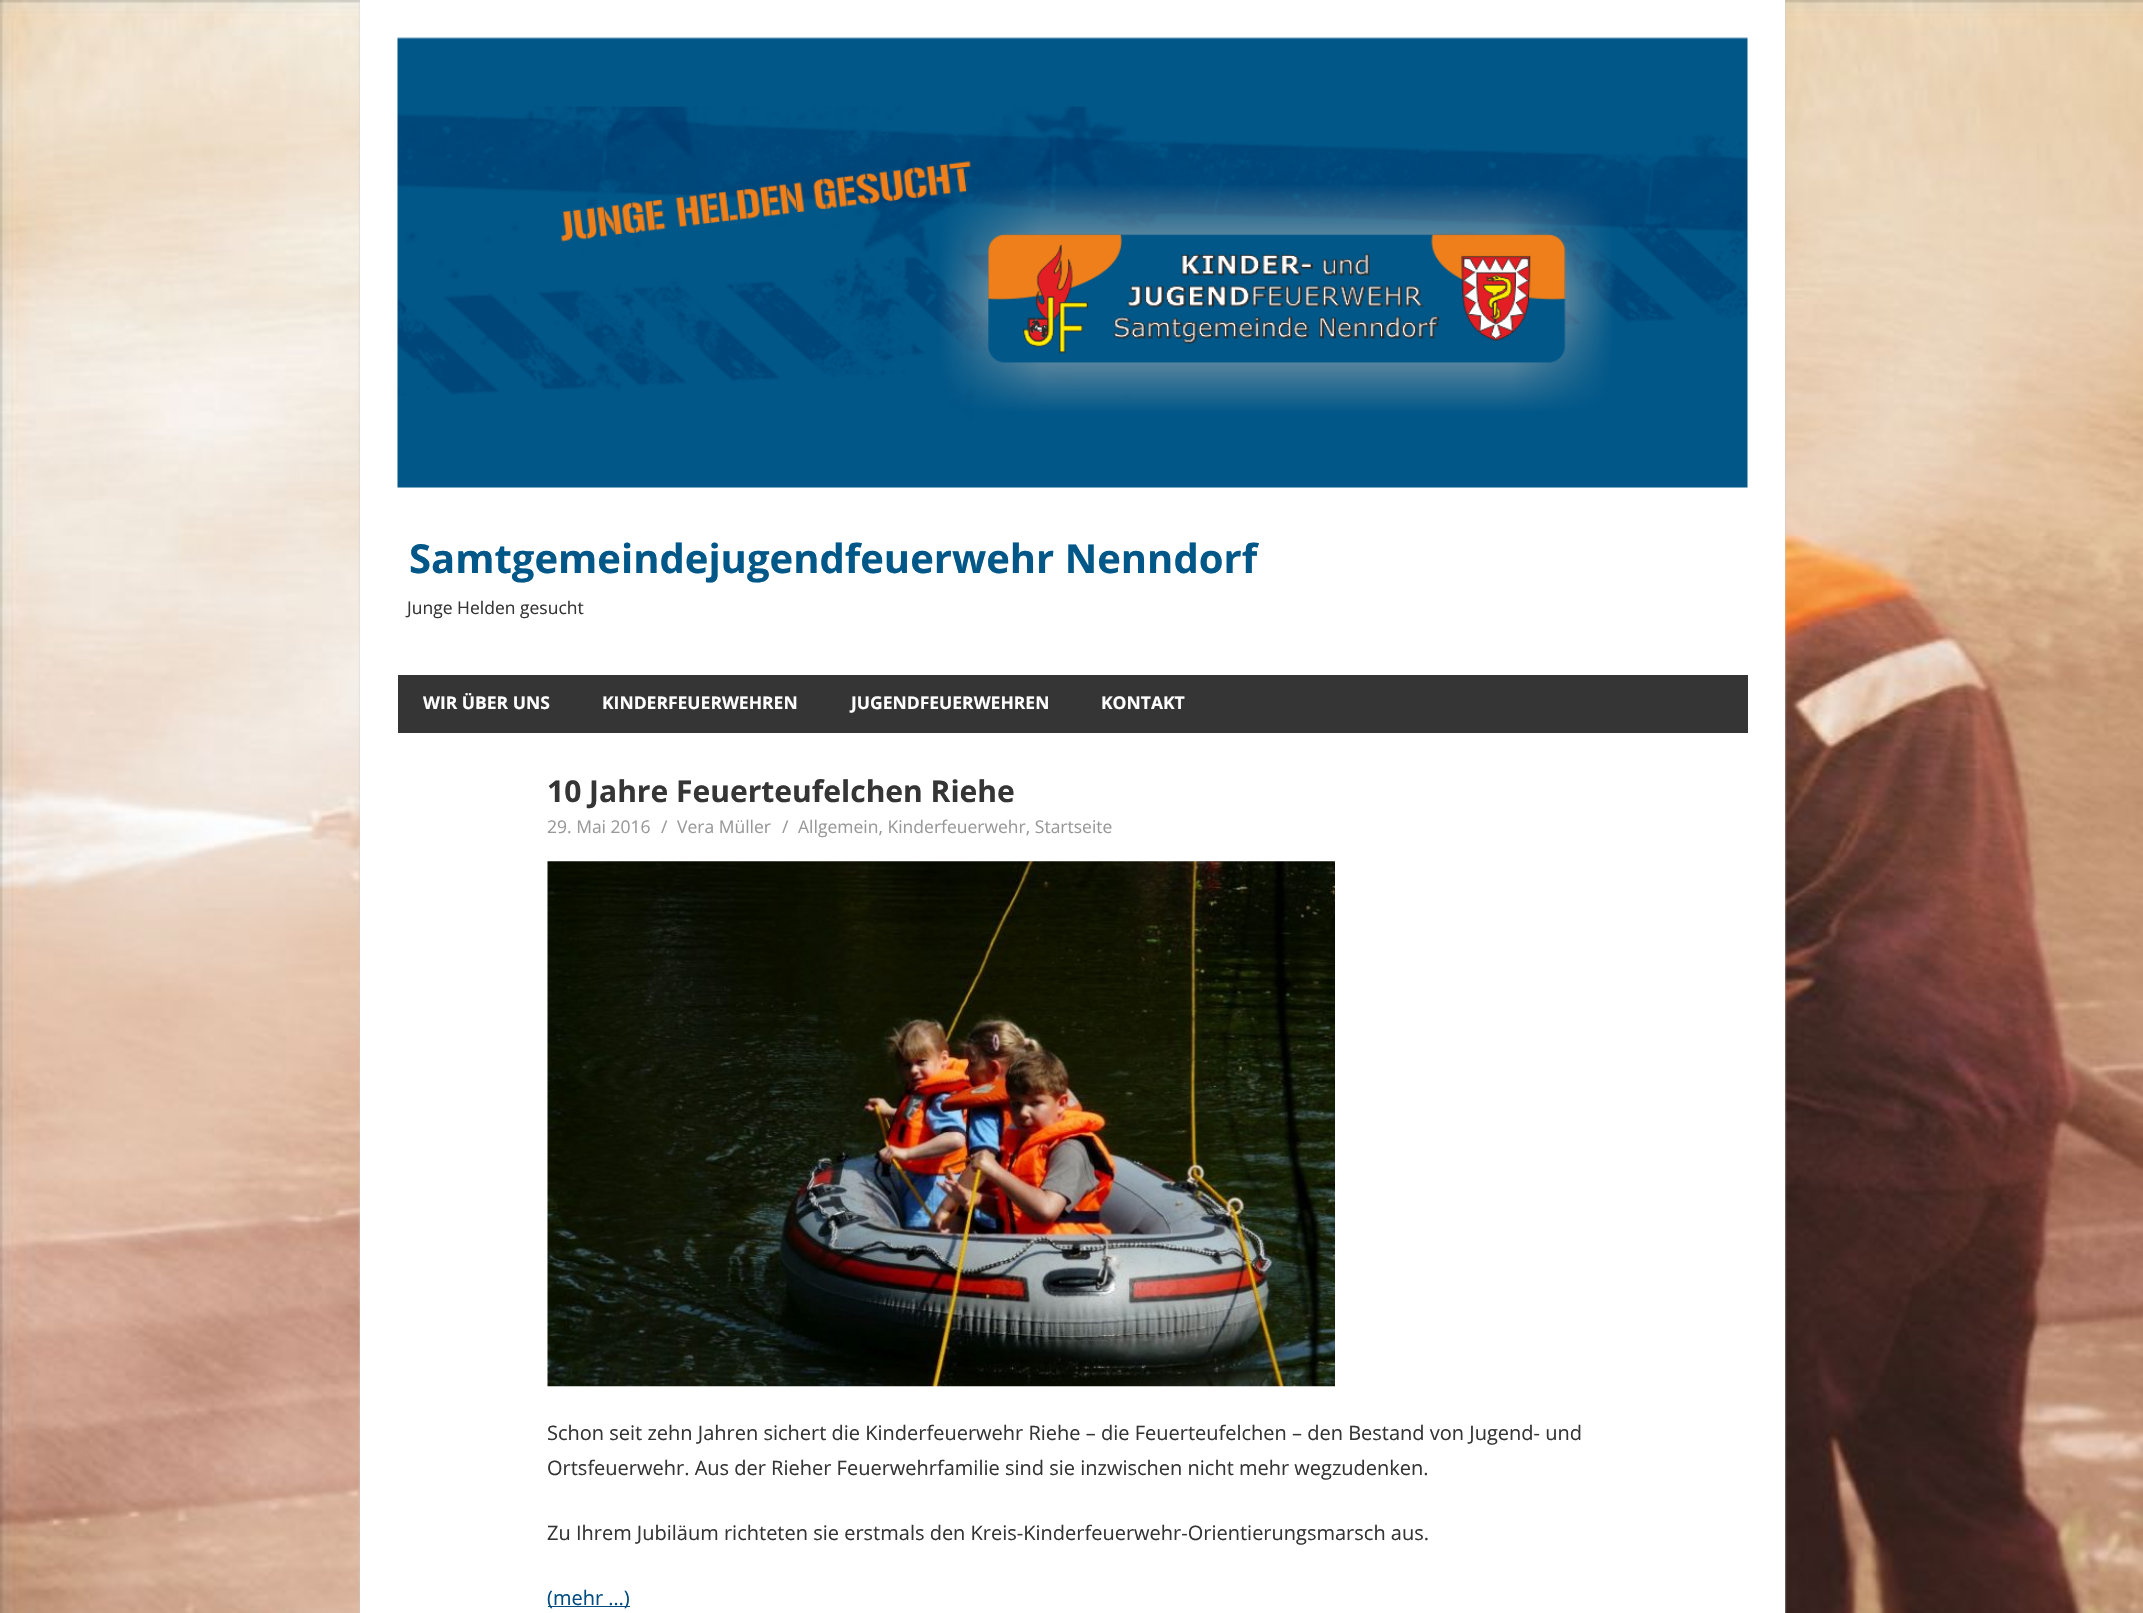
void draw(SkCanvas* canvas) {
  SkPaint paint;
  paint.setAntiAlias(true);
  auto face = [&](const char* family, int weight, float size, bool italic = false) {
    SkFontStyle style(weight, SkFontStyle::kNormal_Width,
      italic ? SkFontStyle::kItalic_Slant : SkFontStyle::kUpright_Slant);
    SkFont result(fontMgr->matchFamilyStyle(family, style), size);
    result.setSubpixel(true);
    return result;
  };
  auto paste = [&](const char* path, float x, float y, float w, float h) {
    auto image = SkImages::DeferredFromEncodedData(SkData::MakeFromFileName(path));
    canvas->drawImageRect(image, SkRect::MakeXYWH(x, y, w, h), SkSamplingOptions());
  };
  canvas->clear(0xffffffff);
  paste("img/1.png", 0, 0, 2143, 1613);
  paint.setColor(0xffcccccc);
  paint.setMaskFilter(SkMaskFilter::MakeBlur(kNormal_SkBlurStyle, 1));
  canvas->drawRect(SkRect::MakeXYWH(360, 0, 1425, 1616), paint);
  paint.setMaskFilter(nullptr);
  paint.setColor(0xffffffff);
  canvas->drawRect(SkRect::MakeXYWH(360, 0, 1425, 1613), paint);
  paste("img/2.png", 397, 37, 1351, 451);
  paint.setColor(0xff353535);
  canvas->drawRect(SkRect::MakeXYWH(398, 675, 1350, 58), paint);
  paste("img/3.png", 547, 861, 788, 526);
  paint.setColor(0xff004b7f);
  canvas->drawRect(SkRect::MakeXYWH(548, 1606, 82, 1), paint);
  auto f0 = face("Open Sans", 700, 40);
  paint.setColor(0xff005788);
  canvas->drawString("Samtgemeindejugendfeuerwehr Nenndorf", 409, 573, f0, paint);
  auto f1 = face("Open Sans", 400, 17.5f);
  paint.setColor(0xff353535);
  canvas->drawString("Junge Helden gesucht", 407, 614, f1, paint);
  auto f2 = face("Open Sans", 700, 17.5f);
  paint.setColor(0xffffffff);
  {
    const struct { const char* s; float x, y; } items[] = {
      {"WIR ÜBER UNS", 423, 709},
      {"KINDERFEUERWEHREN", 602, 709},
      {"JUGENDFEUERWEHREN", 851, 709},
      {"KONTAKT", 1101, 709},
    };
    for (auto [s, x, y] : items) {
      canvas->drawString(s, x, y, f2, paint);
    }
  }
  auto f3 = face("Open Sans", 700, 30);
  paint.setColor(0xff353535);
  canvas->drawString("10 Jahre Feuerteufelchen Riehe", 547, 802, f3, paint);
  paint.setColor(0xff999999);
  {
    const struct { const char* s; float x, y; } items[] = {
      {"29. Mai 2016", 547, 833},
      {"/", 661, 833},
      {"Vera Müller", 677, 833},
      {"/", 782, 833},
      {"Allgemein, Kinderfeuerwehr, Startseite", 798, 833},
    };
    for (auto [s, x, y] : items) {
      canvas->drawString(s, x, y, f1, paint);
    }
  }
  auto f4 = face("Open Sans", 400, 20);
  paint.setColor(0xff353535);
  {
    const struct { const char* s; float x, y; } items[] = {
      {"Schon seit zehn Jahren sichert die Kinderfeuerwehr Riehe – die Feuerteufelchen – den Bestand von Jugend- und", 547, 1440},
      {"Ortsfeuerwehr. Aus der Rieher Feuerwehrfamilie sind sie inzwischen nicht mehr wegzudenken.", 547, 1475},
      {"Zu Ihrem Jubiläum richteten sie erstmals den Kreis-Kinderfeuerwehr-Orientierungsmarsch aus.", 547, 1540},
    };
    for (auto [s, x, y] : items) {
      canvas->drawString(s, x, y, f4, paint);
    }
  }
  paint.setColor(0xff004b7f);
  canvas->drawString("(mehr …)", 547, 1605, f4, paint);
}
